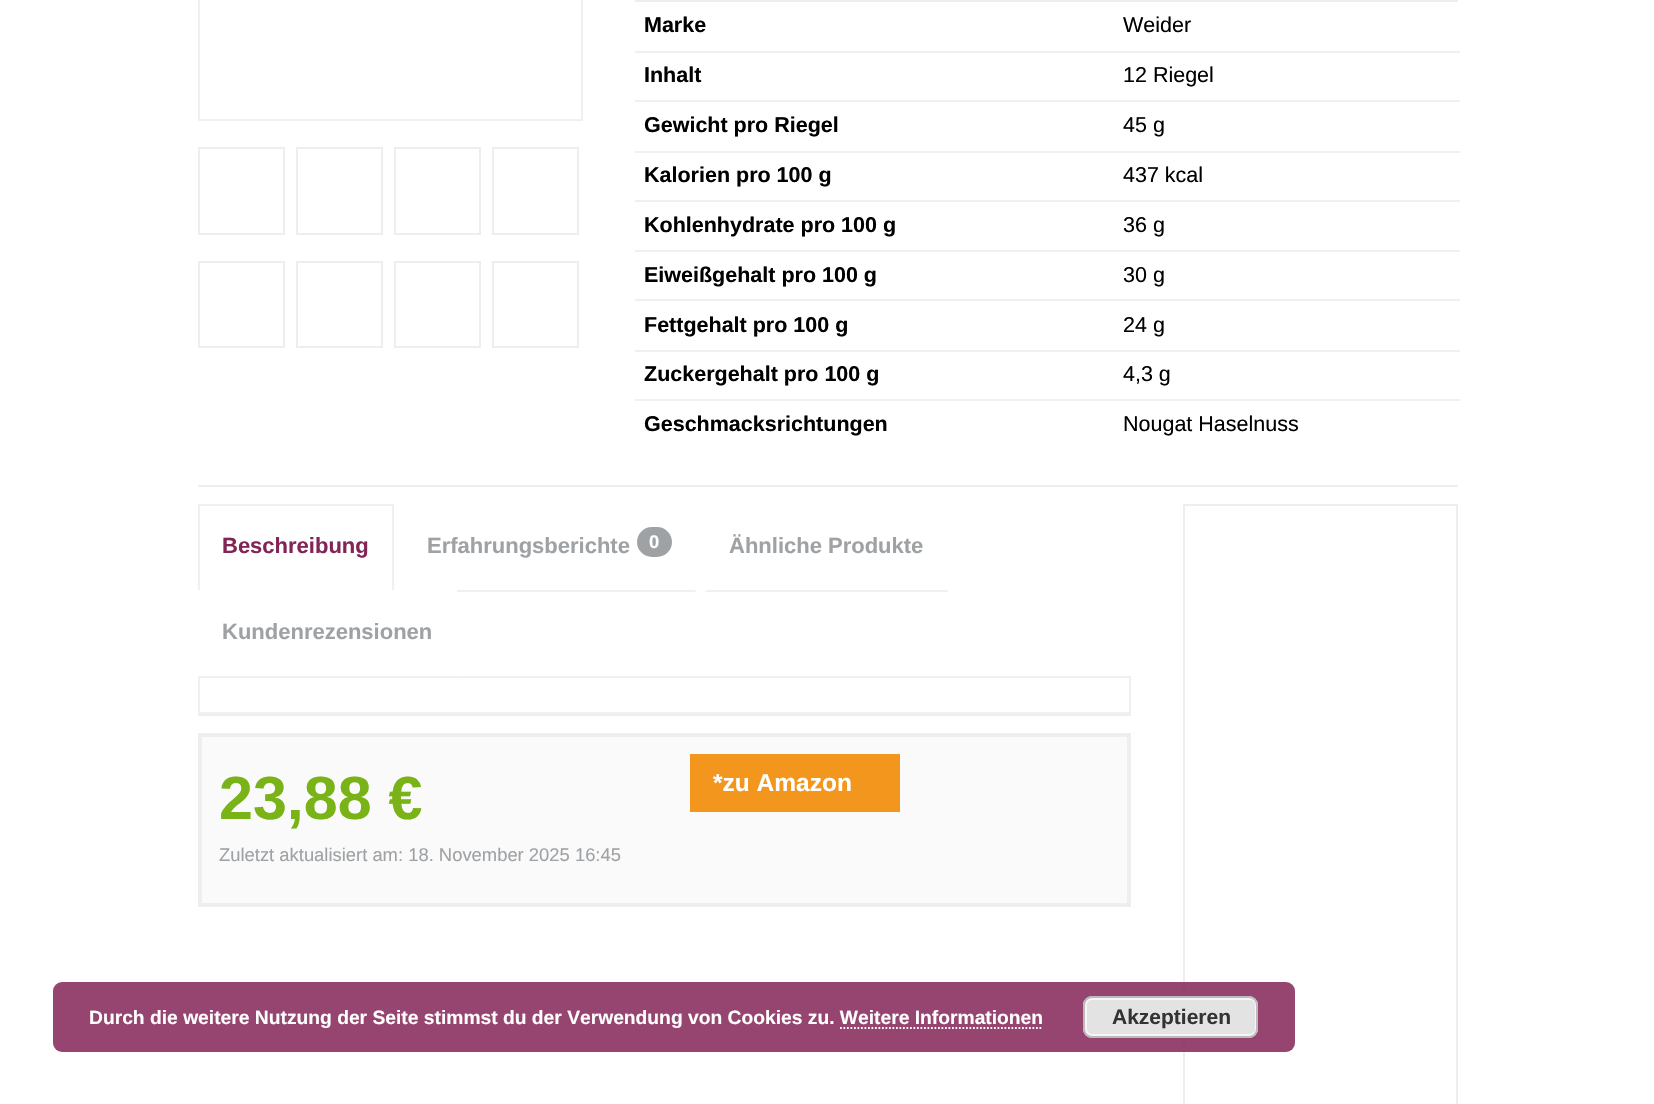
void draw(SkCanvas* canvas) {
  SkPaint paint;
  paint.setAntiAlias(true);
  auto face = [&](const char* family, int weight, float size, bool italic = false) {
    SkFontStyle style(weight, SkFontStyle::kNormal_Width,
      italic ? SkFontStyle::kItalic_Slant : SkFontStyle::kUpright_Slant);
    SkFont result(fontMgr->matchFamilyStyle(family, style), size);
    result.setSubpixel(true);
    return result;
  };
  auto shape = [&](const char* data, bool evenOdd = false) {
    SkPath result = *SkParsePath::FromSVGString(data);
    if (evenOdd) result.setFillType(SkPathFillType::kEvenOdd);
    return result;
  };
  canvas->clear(0xffffffff);
  paint.setStroke(true);
  paint.setStrokeWidth(2);
  paint.setColor(0xfff0f0f0);
  canvas->drawRect(SkRect::MakeXYWH(199, -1, 383, 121), paint);
  paint.setColor(0xffeeeeee);
  canvas->drawRect(SkRect::MakeXYWH(199, 148, 85, 86), paint);
  canvas->drawRect(SkRect::MakeXYWH(297, 148, 85, 86), paint);
  canvas->drawRect(SkRect::MakeXYWH(395, 148, 85, 86), paint);
  canvas->drawRect(SkRect::MakeXYWH(493, 148, 85, 86), paint);
  canvas->drawRect(SkRect::MakeXYWH(199, 262, 85, 85), paint);
  canvas->drawRect(SkRect::MakeXYWH(297, 262, 85, 85), paint);
  canvas->drawRect(SkRect::MakeXYWH(395, 262, 85, 85), paint);
  canvas->drawRect(SkRect::MakeXYWH(493, 262, 85, 85), paint);
  paint.setStrokeWidth(4);
  canvas->drawRect(SkRect::MakeXYWH(637, -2, 819, 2), paint);
  paint.setStroke(false);
  {
    const struct { float x, y, w, h; SkColor color; } items[] = {
      {635, 51, 825, 2, 0xfff0f0f0},
      {635, 100, 825, 2, 0xfff0f0f0},
      {635, 151, 825, 2, 0xfff0f0f0},
      {635, 200, 825, 2, 0xfff0f0f0},
      {635, 250, 825, 2, 0xfff0f0f0},
      {635, 299, 825, 2, 0xfff0f0f0},
      {635, 350, 825, 2, 0xfff0f0f0},
      {635, 399, 825, 2, 0xfff0f0f0},
      {198, 485, 1260, 2, 0xffeeeeee},
      {198, 676, 933, 2, 0xfff0f0f0},
      {198, 504, 196, 2, 0xfff0f0f0},
    };
    for (auto [x, y, w, h, color] : items) {
      paint.setColor(color);
      canvas->drawRect(SkRect::MakeXYWH(x, y, w, h), paint);
    }
  }
  canvas->drawPath(shape("M394 504V592L392 590V506Z"), paint);
  canvas->drawPath(shape("M198 592V504L200 506V590Z"), paint);
  canvas->drawPath(shape("M696 592H402L404 590H695Z"), paint);
  paint.setColor(0xff9fa2a5);
  canvas->drawRoundRect(SkRect::MakeXYWH(637, 527, 35, 30), 15, 15, paint);
  paint.setColor(0xfff0f0f0);
  canvas->drawPath(shape("M948 592H705L707 590H947Z"), paint);
  paint.setColor(0xffffffff);
  canvas->drawRect(SkRect::MakeXYWH(198, 590, 259, 87), paint);
  paint.setColor(0xfff0f0f0);
  canvas->drawPath(shape("M457 677H198L200 676H455Z"), paint);
  {
    const struct { float x, y, w, h; SkColor color; } items[] = {
      {1129, 677, 2, 37, 0xfff0f0f0},
      {198, 712, 933, 2, 0xfff0f0f0},
      {198, 677, 2, 37, 0xfff0f0f0},
      {198, 714, 933, 2, 0xffeeeeee},
    };
    for (auto [x, y, w, h, color] : items) {
      paint.setColor(color);
      canvas->drawRect(SkRect::MakeXYWH(x, y, w, h), paint);
    }
  }
  paint.setColor(0xfffafafa);
  canvas->drawRect(SkRect::MakeXYWH(200, 735, 929, 170), paint);
  paint.setStroke(true);
  paint.setColor(0xffeeeeee);
  canvas->drawRect(SkRect::MakeXYWH(200, 735, 929, 170), paint);
  paint.setStroke(false);
  paint.setColor(0xfff3961d);
  canvas->drawRect(SkRect::MakeXYWH(690, 754, 210, 58), paint);
  paint.setStroke(true);
  paint.setStrokeWidth(2);
  paint.setColor(0xffeeeeee);
  canvas->drawRect(SkRect::MakeXYWH(1184, 505, 273, 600), paint);
  paint.setStroke(false);
  paint.setColor(0xd9822556);
  canvas->drawRoundRect(SkRect::MakeXYWH(53, 982, 1242, 70), 9, 9, paint);
  paint.setColor(0xffe3e3e3);
  canvas->drawRoundRect(SkRect::MakeXYWH(1083, 996, 175, 42), 9, 9, paint);
  paint.setStroke(true);
  paint.setColor(0xfff6f6f6);
  canvas->drawRoundRect(SkRect::MakeXYWH(1086, 999, 170, 36), 6, 6, paint);
  paint.setColor(0xffbbbbbb);
  canvas->drawRoundRect(SkRect::MakeXYWH(1084, 997, 173, 40), 8, 8, paint);
  paint.setStrokeWidth(1.8f);
  paint.setColor(0xffffffff);
  paint.setPathEffect(SkDashPathEffect::Make({{1.75f, 1.75f}}, 0));
  canvas->drawPath(shape("M840 1028H1043"), paint);
  paint.setPathEffect(nullptr);
  auto f0 = face("Liberation Sans", 700, 21.5f);
  paint.setStroke(false);
  paint.setColor(0xff000000);
  canvas->drawString("Marke", 644, 32, f0, paint);
  auto f1 = face("Liberation Sans", 400, 21.5f);
  canvas->drawString("Weider", 1123, 32, f1, paint);
  canvas->drawString("Inhalt", 644, 82, f0, paint);
  canvas->drawString("12 Riegel", 1123, 82, f1, paint);
  canvas->drawString("Gewicht pro Riegel", 644, 132, f0, paint);
  canvas->drawString("45 g", 1123, 132, f1, paint);
  canvas->drawString("Kalorien pro 100 g", 644, 182, f0, paint);
  canvas->drawString("437 kcal", 1123, 182, f1, paint);
  canvas->drawString("Kohlenhydrate pro 100 g", 644, 232, f0, paint);
  canvas->drawString("36 g", 1123, 232, f1, paint);
  canvas->drawString("Eiweißgehalt pro 100 g", 644, 282, f0, paint);
  canvas->drawString("30 g", 1123, 282, f1, paint);
  canvas->drawString("Fettgehalt pro 100 g", 644, 332, f0, paint);
  canvas->drawString("24 g", 1123, 332, f1, paint);
  canvas->drawString("Zuckergehalt pro 100 g", 644, 381, f0, paint);
  canvas->drawString("4,3 g", 1123, 381, f1, paint);
  canvas->drawString("Geschmacksrichtungen", 644, 431, f0, paint);
  canvas->drawString("Nougat Haselnuss", 1123, 431, f1, paint);
  auto f2 = face("Liberation Sans", 700, 22);
  paint.setColor(0xff822556);
  canvas->drawString("Beschreibung", 222, 553, f2, paint);
  paint.setColor(0xff9fa2a5);
  canvas->drawString("Erfahrungsberichte", 427, 553, f2, paint);
  auto f3 = face("Liberation Sans", 700, 18.4f);
  paint.setColor(0xffffffff);
  canvas->drawString("0", 649, 548, f3, paint);
  paint.setColor(0xff9fa2a5);
  canvas->drawString("Ähnliche Produkte", 729, 553, f2, paint);
  canvas->drawString("Kundenrezensionen", 222, 639, f2, paint);
  auto f4 = face("Liberation Sans", 700, 61);
  paint.setColor(0xff7ab317);
  canvas->drawString("23,88 €", 219, 819, f4, paint);
  auto f5 = face("Liberation Sans", 400, 18.4f);
  paint.setColor(0xff9fa2a5);
  canvas->drawString("Zuletzt aktualisiert am: 18. November 2025 16:45", 219, 861, f5, paint);
  auto f6 = face("Liberation Sans", 700, 24.5f);
  paint.setColor(0xffffffff);
  canvas->drawString("*zu Amazon", 713, 791, f6, paint);
  auto f7 = face("Liberation Sans", 700, 19.25f);
  canvas->drawString("Durch die weitere Nutzung der Seite stimmst du der Verwendung von Cookies zu. Weitere Informationen", 89, 1024, f7, paint);
  auto f8 = face("Liberation Sans", 700, 21);
  paint.setColor(0xff333333);
  canvas->drawString("Akzeptieren", 1112, 1024, f8, paint);
}
